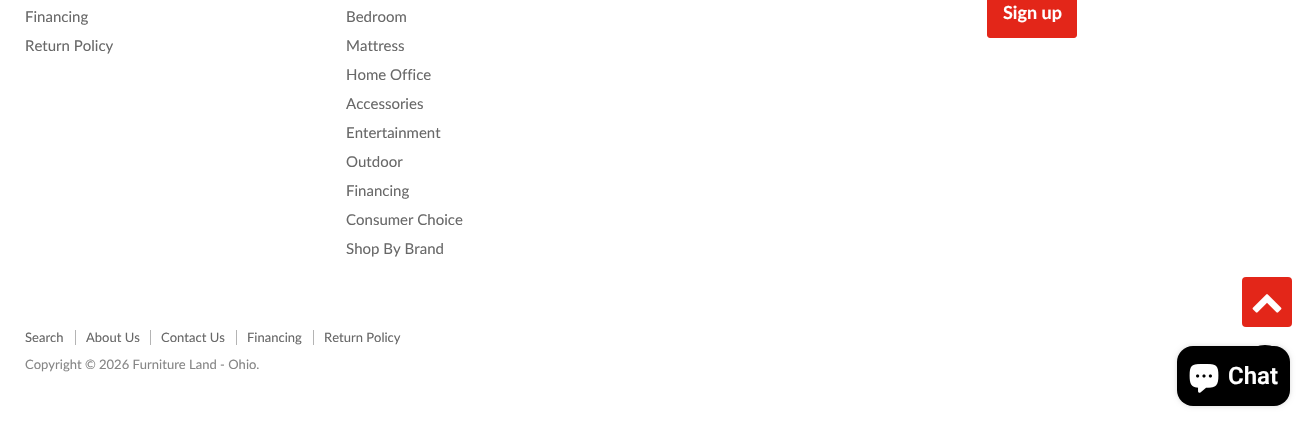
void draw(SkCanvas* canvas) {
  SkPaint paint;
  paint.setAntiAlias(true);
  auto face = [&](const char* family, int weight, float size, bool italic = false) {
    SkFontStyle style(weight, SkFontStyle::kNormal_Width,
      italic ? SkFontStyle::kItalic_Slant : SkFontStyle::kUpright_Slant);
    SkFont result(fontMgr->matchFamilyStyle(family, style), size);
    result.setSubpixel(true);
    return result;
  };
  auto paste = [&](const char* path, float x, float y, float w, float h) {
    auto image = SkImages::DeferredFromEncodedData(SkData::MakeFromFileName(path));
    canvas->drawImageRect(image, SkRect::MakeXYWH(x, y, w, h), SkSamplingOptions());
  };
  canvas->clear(0xffffffff);
  paint.setColor(0xffe32619);
  canvas->drawRoundRect(SkRect::MakeXYWH(987.5f, -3.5f, 89, 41), 2.5f, 2.5f, paint);
  paint.setStroke(true);
  paint.setStrokeWidth(1);
  canvas->drawRoundRect(SkRect::MakeXYWH(987.5f, -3.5f, 89, 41), 2.5f, 2.5f, paint);
  paint.setStroke(false);
  {
    const struct { float x, y, w, h; SkColor color; } items[] = {
      {75, 330, 1, 15, 0xffb4b4b4},
      {150, 330, 1, 15, 0xffb4b4b4},
      {236, 330, 1, 15, 0xffb4b4b4},
      {313, 330, 1, 15, 0xffb4b4b4},
    };
    for (auto [x, y, w, h, color] : items) {
      paint.setColor(color);
      canvas->drawRect(SkRect::MakeXYWH(x, y, w, h), paint);
    }
  }
  paint.setColor(0xffe32619);
  canvas->drawRoundRect(SkRect::MakeXYWH(1242, 277, 50, 50), 4, 4, paint);
  paste("img/1.png", 1252, 294, 30, 19);
  paint.setStroke(true);
  paint.setStrokeWidth(2);
  paint.setColor(0xff000000);
  canvas->drawCircle(1265, 370, 24, paint);
  paint.setStroke(false);
  paint.setColor(0x26000000);
  paint.setMaskFilter(SkMaskFilter::MakeBlur(kNormal_SkBlurStyle, 2.5f));
  canvas->drawRoundRect(SkRect::MakeXYWH(1177, 346, 113, 60), 16, 16, paint);
  paint.setMaskFilter(nullptr);
  paint.setColor(0xff000000);
  canvas->drawRoundRect(SkRect::MakeXYWH(1177, 346, 113, 60), 16, 16, paint);
  paste("img/2.png", 1189, 364, 30, 29);
  auto f0 = face("Lato", 400, 15);
  paint.setColor(0xff686868);
  {
    const struct { const char* s; float x, y; } items[] = {
      {"Financing", 25, 22},
      {"Return Policy", 25, 51},
      {"Bedroom", 346, 22},
      {"Mattress", 346, 51},
      {"Home Office", 346, 80},
      {"Accessories", 346, 109},
      {"Entertainment", 346, 138},
      {"Outdoor", 346, 167},
      {"Financing", 346, 196},
      {"Consumer Choice", 346, 225},
      {"Shop By Brand", 346, 254},
    };
    for (auto [s, x, y] : items) {
      canvas->drawString(s, x, y, f0, paint);
    }
  }
  auto f1 = face("Lato", 700, 18);
  paint.setColor(0xffffffff);
  canvas->drawString("Sign up", 1003, 19, f1, paint);
  auto f2 = face("Lato", 400, 13);
  paint.setColor(0xff686868);
  {
    const struct { const char* s; float x, y; } items[] = {
      {"Search", 25, 342},
      {"About Us", 86, 342},
      {"Contact Us", 161, 342},
      {"Financing", 247, 342},
      {"Return Policy", 324, 342},
    };
    for (auto [s, x, y] : items) {
      canvas->drawString(s, x, y, f2, paint);
    }
  }
  paint.setColor(0xff868686);
  canvas->drawString("Copyright © 2026 Furniture Land - Ohio.", 25, 369, f2, paint);
  auto f3 = face("Roboto", 600, 24);
  paint.setColor(0xffffffff);
  canvas->drawString("Chat", 1228, 384, f3, paint);
}
